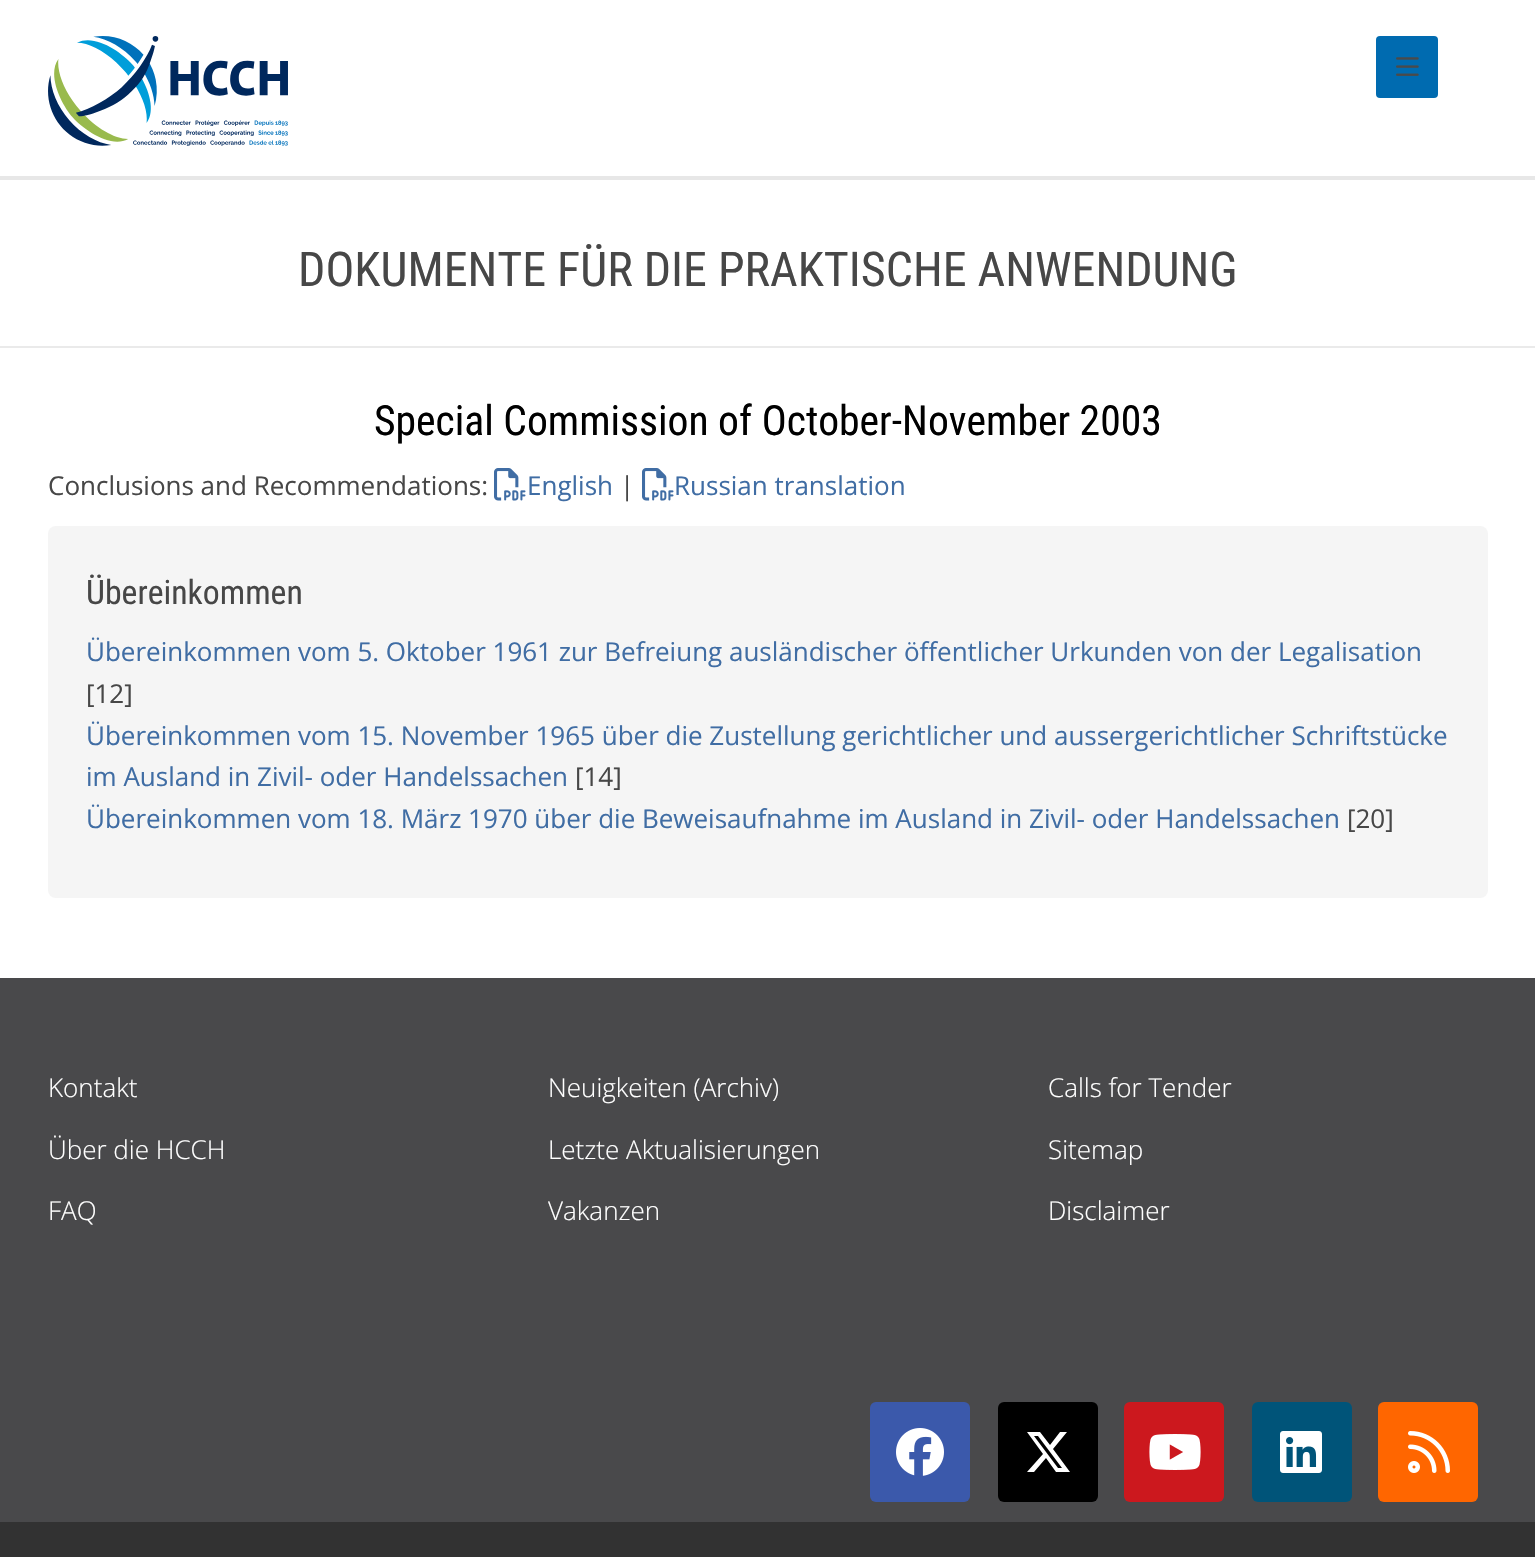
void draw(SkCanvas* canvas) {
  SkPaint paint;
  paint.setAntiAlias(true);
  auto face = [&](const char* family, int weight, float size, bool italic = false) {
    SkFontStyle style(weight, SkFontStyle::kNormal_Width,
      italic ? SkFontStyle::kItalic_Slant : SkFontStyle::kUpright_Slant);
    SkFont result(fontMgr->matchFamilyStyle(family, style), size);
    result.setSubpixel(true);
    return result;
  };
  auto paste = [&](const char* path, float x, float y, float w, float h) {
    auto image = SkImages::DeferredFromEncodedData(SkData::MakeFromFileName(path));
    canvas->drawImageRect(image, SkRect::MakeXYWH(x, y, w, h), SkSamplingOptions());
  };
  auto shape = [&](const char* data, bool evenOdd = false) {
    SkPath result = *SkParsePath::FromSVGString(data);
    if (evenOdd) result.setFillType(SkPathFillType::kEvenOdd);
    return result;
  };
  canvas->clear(0xffffffff);
  paint.setColor(0xffe7e7e7);
  canvas->drawRect(SkRect::MakeXYWH(0, 176, 1535, 4), paint);
  paste("img/1.png", 48, 36, 240, 110);
  paint.setColor(0xff006bb0);
  canvas->drawRoundRect(SkRect::MakeXYWH(1376, 36, 62, 62), 4, 4, paint);
  paste("img/2.png", 1396, 57, 23, 19);
  paint.setColor(0xffeaeaea);
  canvas->drawRect(SkRect::MakeXYWH(0, 346, 1535, 2), paint);
  paste("img/3.png", 494, 468, 32, 33);
  paste("img/3.png", 642, 468, 32, 33);
  paint.setColor(0xfff5f5f5);
  canvas->drawRoundRect(SkRect::MakeXYWH(48, 526, 1440, 372), 8, 8, paint);
  paint.setColor(0xff49494b);
  canvas->drawRect(SkRect::MakeXYWH(0, 978, 1535, 544), paint);
  paint.setColor(0xff3b59ab);
  canvas->drawRoundRect(SkRect::MakeXYWH(870, 1402, 100, 100), 6, 6, paint);
  paste("img/4.png", 896, 1428, 48, 48);
  paint.setColor(0xff000000);
  canvas->drawRoundRect(SkRect::MakeXYWH(998, 1402, 100, 100), 6, 6, paint);
  paint.setColor(0xffffffff);
  canvas->drawPath(shape("M1060 1432H1067L1053 1449L1070 1472H1056L1046 1458L1034 1472H1027L1043 1454L1027 1432H1040L1050 1445ZM1058 1468H1062L1038 1436H1034Z"), paint);
  paint.setColor(0xffcc181e);
  canvas->drawRoundRect(SkRect::MakeXYWH(1124, 1402, 100, 100), 6, 6, paint);
  paste("img/5.png", 1149, 1434, 52, 36);
  paint.setColor(0xff005479);
  canvas->drawRoundRect(SkRect::MakeXYWH(1252, 1402, 100, 100), 6, 6, paint);
  paste("img/6.png", 1280, 1431, 42, 42);
  paint.setColor(0xffff6600);
  canvas->drawRoundRect(SkRect::MakeXYWH(1378, 1402, 100, 100), 6, 6, paint);
  paste("img/7.png", 1408, 1431, 42, 42);
  paint.setColor(0xff323232);
  canvas->drawRect(SkRect::MakeXYWH(0, 1522, 1535, 35), paint);
  auto f0 = face("Roboto Condensed", 400, 48);
  paint.setColor(0xff474747);
  canvas->drawString("DOKUMENTE FÜR DIE PRAKTISCHE ANWENDUNG", 298, 286, f0, paint);
  auto f1 = face("Roboto Condensed", 400, 41.6f);
  paint.setColor(0xff000000);
  canvas->drawString("Special Commission of October-November 2003", 374, 435, f1, paint);
  auto f2 = face("Open Sans", 400, 26);
  paint.setColor(0xff474747);
  canvas->drawString("Conclusions and Recommendations:", 48, 495, f2, paint);
  paint.setColor(0xff406da4);
  canvas->drawString("English", 527, 495, f2, paint);
  paint.setColor(0xff474747);
  canvas->drawString("|", 620, 495, f2, paint);
  paint.setColor(0xff406da4);
  canvas->drawString("Russian translation", 674, 495, f2, paint);
  auto f3 = face("Roboto Condensed", 400, 33.75f);
  paint.setColor(0xff474747);
  canvas->drawString("Übereinkommen", 86, 604, f3, paint);
  paint.setColor(0xff406da4);
  canvas->drawString("Übereinkommen vom 5. Oktober 1961 zur Befreiung ausländischer öffentlicher Urkunden von der Legalisation", 86, 661, f2, paint);
  paint.setColor(0xff474747);
  canvas->drawString("[12]", 86, 703, f2, paint);
  paint.setColor(0xff406da4);
  canvas->drawString("Übereinkommen vom 15. November 1965 über die Zustellung gerichtlicher und aussergerichtlicher Schriftstücke", 86, 745, f2, paint);
  canvas->drawString("im Ausland in Zivil- oder Handelssachen", 86, 786, f2, paint);
  paint.setColor(0xff474747);
  canvas->drawString("[14]", 575, 786, f2, paint);
  paint.setColor(0xff406da4);
  canvas->drawString("Übereinkommen vom 18. März 1970 über die Beweisaufnahme im Ausland in Zivil- oder Handelssachen", 86, 828, f2, paint);
  paint.setColor(0xff474747);
  canvas->drawString("[20]", 1347, 828, f2, paint);
  auto f4 = face("Open Sans", 300, 26);
  paint.setColor(0xffffffff);
  {
    const struct { const char* s; float x, y; } items[] = {
      {"Kontakt", 48, 1097},
      {"Über die HCCH", 48, 1159},
      {"FAQ", 48, 1220},
      {"Neuigkeiten (Archiv)", 548, 1097},
      {"Letzte Aktualisierungen", 548, 1159},
      {"Vakanzen", 548, 1220},
      {"Calls for Tender", 1048, 1097},
      {"Sitemap", 1048, 1159},
      {"Disclaimer", 1048, 1220},
    };
    for (auto [s, x, y] : items) {
      canvas->drawString(s, x, y, f4, paint);
    }
  }
}
